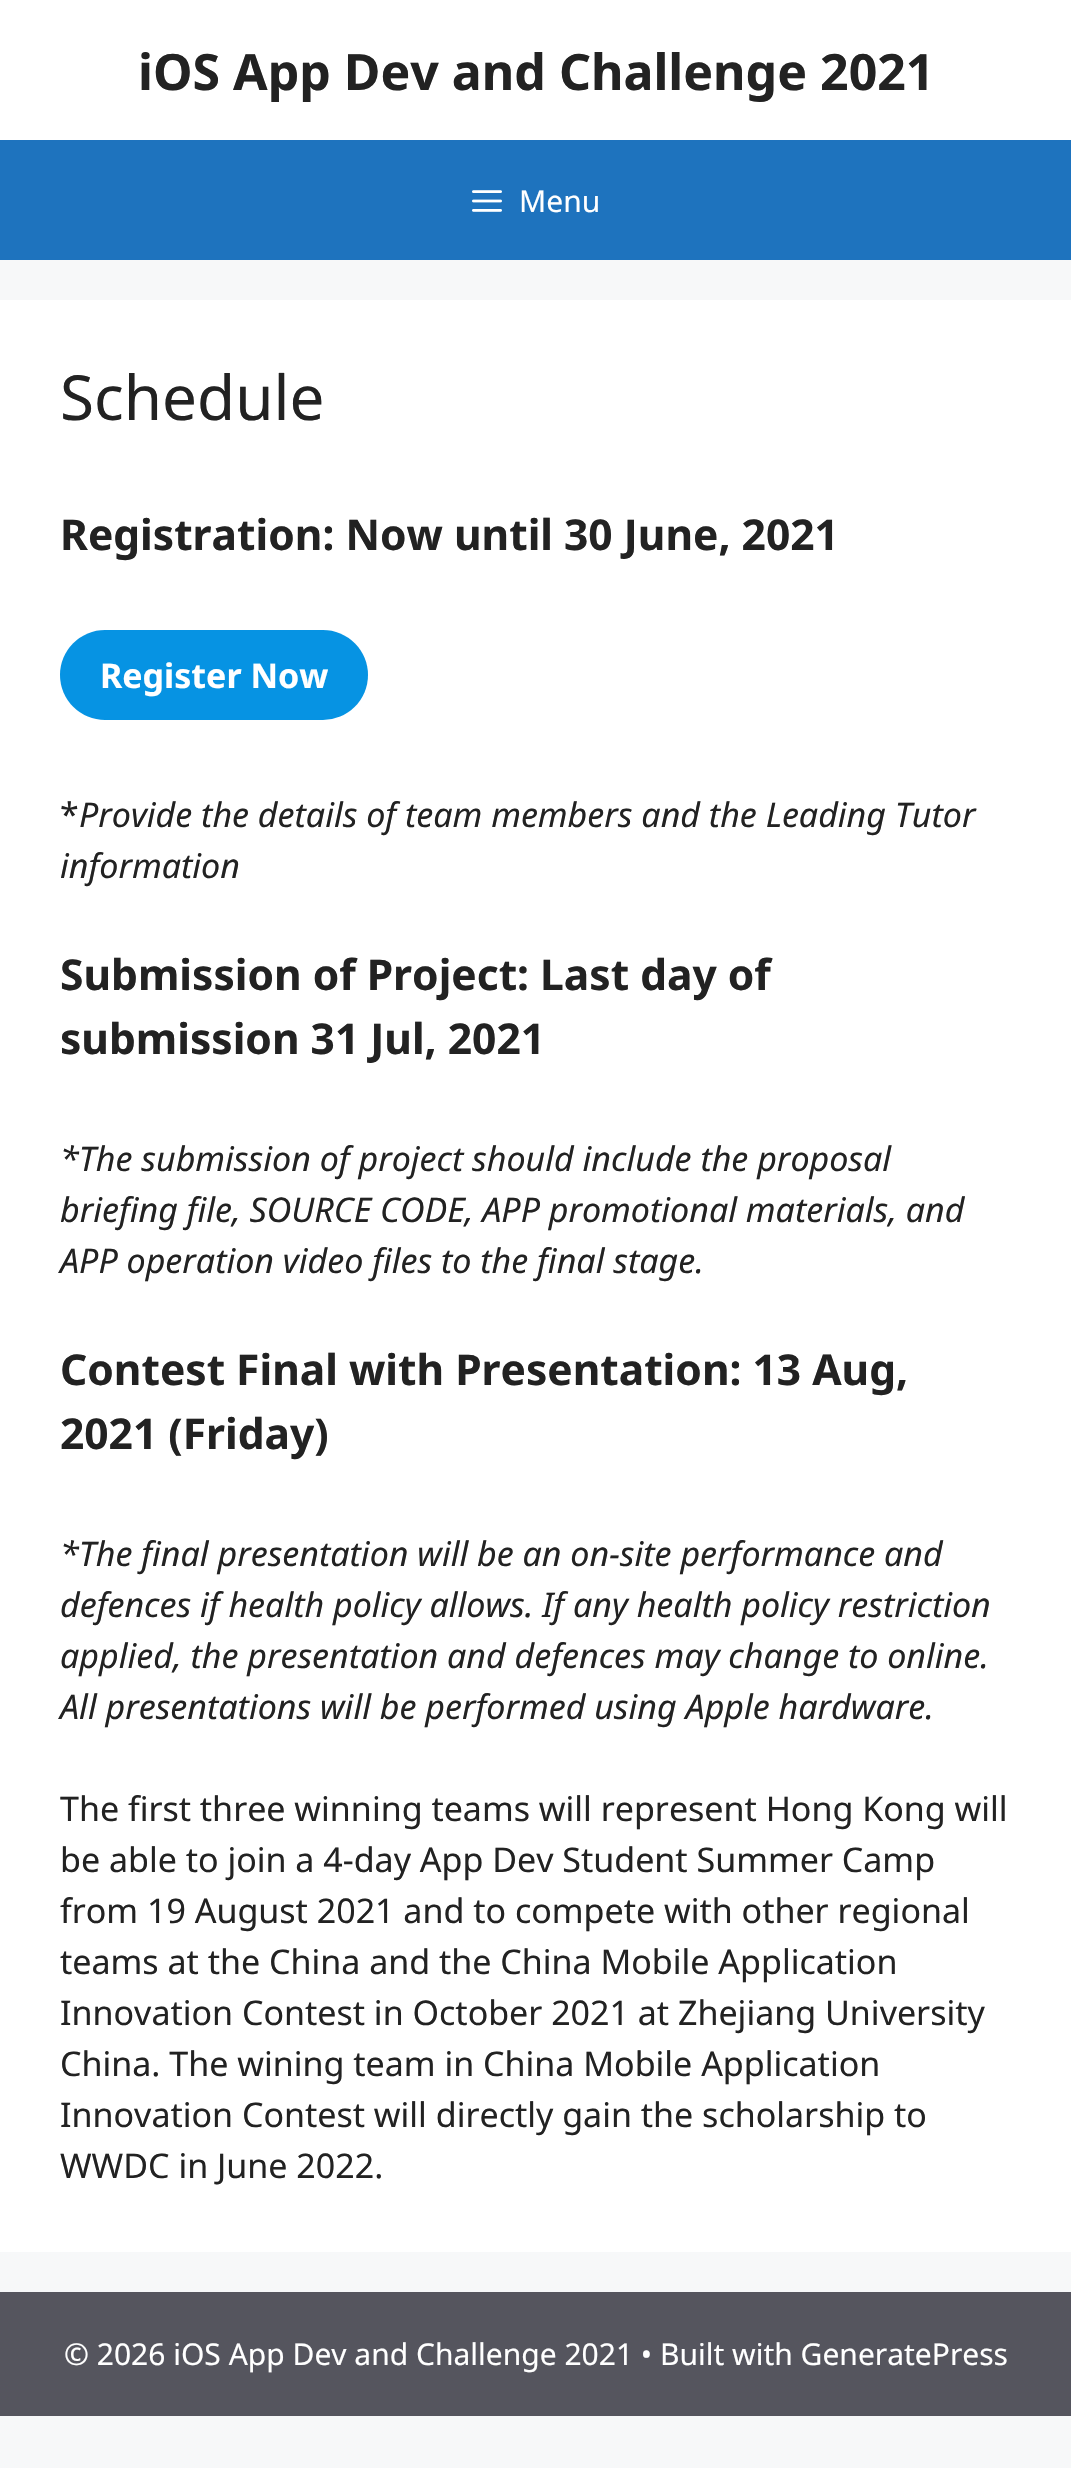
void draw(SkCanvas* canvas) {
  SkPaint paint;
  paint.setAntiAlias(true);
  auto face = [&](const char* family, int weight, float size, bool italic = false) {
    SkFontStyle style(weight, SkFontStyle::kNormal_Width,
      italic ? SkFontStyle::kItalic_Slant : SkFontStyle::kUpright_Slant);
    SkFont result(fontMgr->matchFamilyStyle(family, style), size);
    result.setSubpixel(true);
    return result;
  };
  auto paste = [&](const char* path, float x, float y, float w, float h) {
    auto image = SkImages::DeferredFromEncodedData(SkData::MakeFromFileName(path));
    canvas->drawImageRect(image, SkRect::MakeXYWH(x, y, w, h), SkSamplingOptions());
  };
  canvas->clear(0xfff7f8f9);
  paint.setColor(0xffffffff);
  canvas->drawRect(SkRect::MakeXYWH(0, 0, 1071, 140), paint);
  paint.setColor(0xff1e73be);
  canvas->drawRect(SkRect::MakeXYWH(0, 140, 1071, 120), paint);
  paste("img/1.png", 472, 190, 30, 22);
  paint.setColor(0xffffffff);
  canvas->drawRect(SkRect::MakeXYWH(0, 300, 1071, 1952), paint);
  paint.setColor(0xff0693e3);
  canvas->drawRoundRect(SkRect::MakeXYWH(60, 630, 308, 90), 45, 45, paint);
  paint.setColor(0xff55555e);
  canvas->drawRect(SkRect::MakeXYWH(0, 2292, 1071, 124), paint);
  auto f0 = face("Noto Sans", 700, 50);
  paint.setColor(0xff222222);
  canvas->drawString("iOS App Dev and Challenge 2021", 138, 90, f0, paint);
  auto f1 = face("Noto Sans", 400, 30);
  paint.setColor(0xffffffff);
  canvas->drawString("Menu", 519, 212, f1, paint);
  auto f2 = face("Noto Sans", 400, 62);
  paint.setColor(0xff222222);
  canvas->drawString("Schedule", 60, 420, f2, paint);
  auto f3 = face("Noto Sans", 700, 42.5f);
  canvas->drawString("Registration: Now until 30 June, 2021", 60, 550, f3, paint);
  auto f4 = face("Noto Sans", 700, 34);
  paint.setColor(0xffffffff);
  canvas->drawString("Register Now", 100, 688, f4, paint);
  auto f5 = face("Noto Sans", 400, 34);
  paint.setColor(0xff222222);
  canvas->drawString("*", 60, 827, f5, paint);
  auto f6 = face("Noto Sans", 400, 34, true);
  canvas->drawString("Provide the details of team members and the Leading Tutor", 79, 827, f6, paint);
  canvas->drawString("information", 60, 878, f6, paint);
  canvas->drawString("Submission of Project: Last day of", 60, 990, f3, paint);
  canvas->drawString("submission 31 Jul, 2021", 60, 1054, f3, paint);
  {
    const struct { const char* s; float x, y; } items[] = {
      {"*The submission of project should include the proposal", 60, 1171},
      {"briefing file, SOURCE CODE, APP promotional materials, and", 60, 1222},
      {"APP operation video files to the final stage.", 60, 1273},
    };
    for (auto [s, x, y] : items) {
      canvas->drawString(s, x, y, f6, paint);
    }
  }
  canvas->drawString("Contest Final with Presentation: 13 Aug,", 60, 1385, f3, paint);
  canvas->drawString("2021 (Friday)", 60, 1449, f3, paint);
  {
    const struct { const char* s; float x, y; } items[] = {
      {"*The final presentation will be an on-site performance and", 60, 1566},
      {"defences if health policy allows. If any health policy restriction", 60, 1617},
      {"applied, the presentation and defences may change to online.", 60, 1668},
      {"All presentations will be performed using Apple hardware.", 60, 1719},
    };
    for (auto [s, x, y] : items) {
      canvas->drawString(s, x, y, f6, paint);
    }
  }
  {
    const struct { const char* s; float x, y; } items[] = {
      {"The first three winning teams will represent Hong Kong will", 60, 1821},
      {"be able to join a 4-day App Dev Student Summer Camp", 60, 1872},
      {"from 19 August 2021 and to compete with other regional", 60, 1923},
      {"teams at the China and the China Mobile Application", 60, 1974},
      {"Innovation Contest in October 2021 at Zhejiang University", 60, 2025},
      {"China. The wining team in China Mobile Application", 60, 2076},
      {"Innovation Contest will directly gain the scholarship to", 60, 2127},
      {"WWDC in June 2022.", 60, 2178},
    };
    for (auto [s, x, y] : items) {
      canvas->drawString(s, x, y, f5, paint);
    }
  }
  paint.setColor(0xffffffff);
  canvas->drawString("© 2026 iOS App Dev and Challenge 2021 • Built with GeneratePress", 64, 2365, f1, paint);
}
